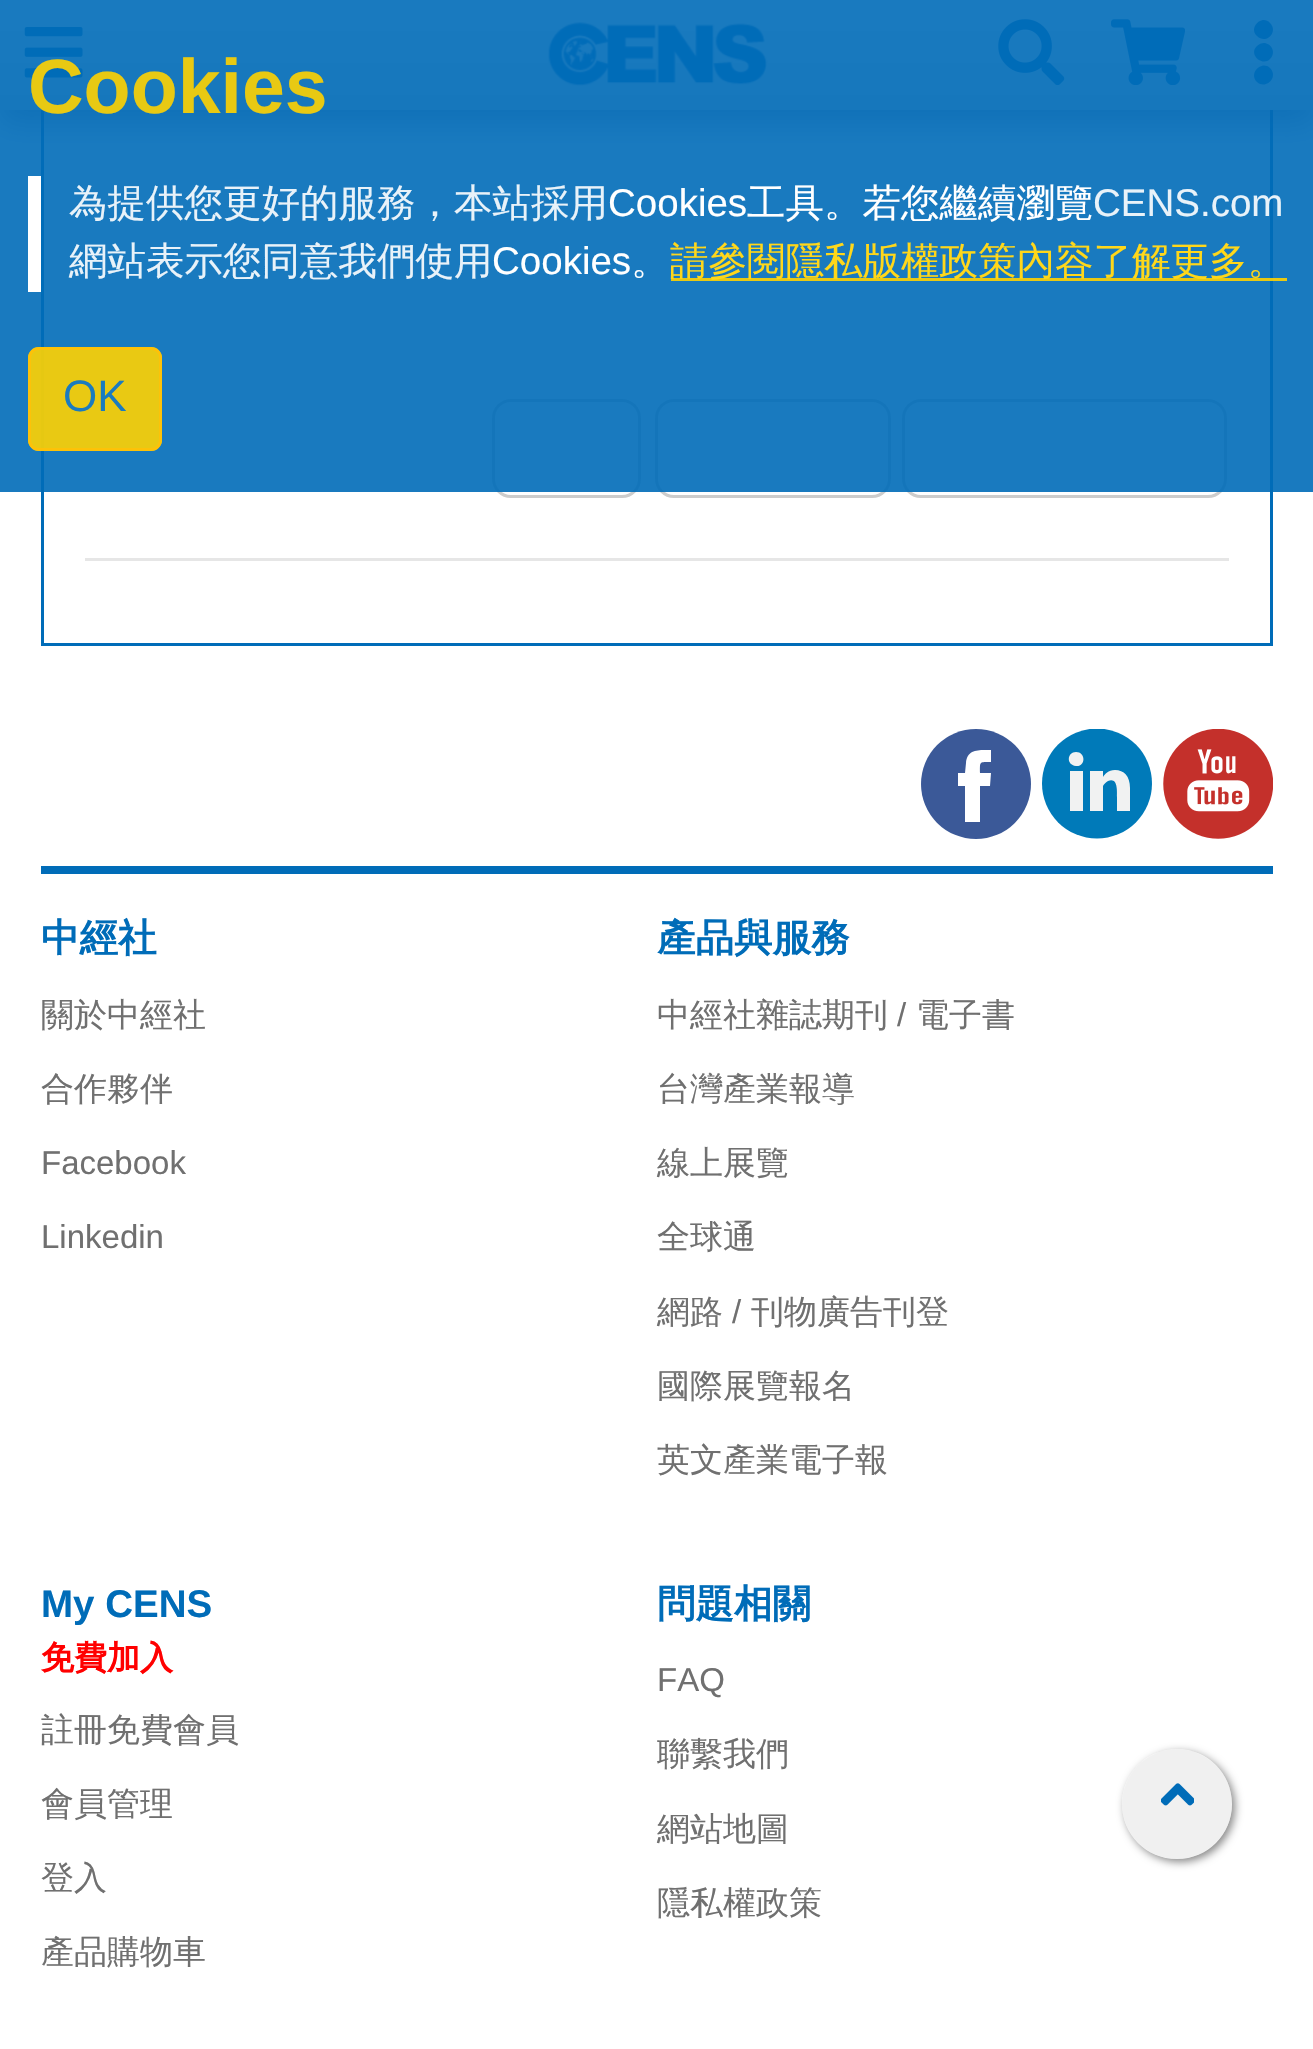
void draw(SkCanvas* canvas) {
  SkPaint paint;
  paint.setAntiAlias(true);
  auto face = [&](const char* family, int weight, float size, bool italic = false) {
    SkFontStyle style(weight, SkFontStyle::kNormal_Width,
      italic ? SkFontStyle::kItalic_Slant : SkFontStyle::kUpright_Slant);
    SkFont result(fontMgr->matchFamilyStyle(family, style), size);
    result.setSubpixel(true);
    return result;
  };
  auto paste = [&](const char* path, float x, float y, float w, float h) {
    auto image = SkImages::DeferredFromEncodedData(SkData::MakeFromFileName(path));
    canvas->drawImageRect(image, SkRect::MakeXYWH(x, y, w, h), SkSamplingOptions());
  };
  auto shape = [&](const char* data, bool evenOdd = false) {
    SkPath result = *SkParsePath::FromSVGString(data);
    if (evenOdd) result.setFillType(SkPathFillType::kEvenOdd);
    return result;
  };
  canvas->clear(0xffffffff);
  paint.setStroke(true);
  paint.setStrokeWidth(3);
  paint.setColor(0xff006cb8);
  canvas->drawRect(SkRect::MakeXYWH(42.5f, -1.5f, 1229, 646), paint);
  paint.setColor(0xffcccccc);
  canvas->drawRoundRect(SkRect::MakeXYWH(493.5f, 400.5f, 146, 96), 17.5f, 17.5f, paint);
  canvas->drawRoundRect(SkRect::MakeXYWH(656.5f, 400.5f, 233, 96), 17.5f, 17.5f, paint);
  canvas->drawRoundRect(SkRect::MakeXYWH(903.5f, 400.5f, 322, 96), 17.5f, 17.5f, paint);
  paint.setStroke(false);
  paint.setColor(0xffe6e6e6);
  canvas->drawRect(SkRect::MakeXYWH(85, 558, 1144, 3), paint);
  paint.setColor(0x80333366);
  paint.setMaskFilter(SkMaskFilter::MakeBlur(kNormal_SkBlurStyle, 14));
  canvas->drawRect(SkRect::MakeXYWH(0, 14, 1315, 110), paint);
  paint.setMaskFilter(nullptr);
  {
    const SkColor colors[] = {0xffffffff, 0xffdddddd};
    const float stops[] = {0, 1};
    const SkPoint ends[] = {{657, 0}, {657, 110}};
    paint.setShader(SkGradientShader::MakeLinear(ends, colors, stops, 2, SkTileMode::kClamp));
    paint.setAlpha(255);
  }
  canvas->drawRect(SkRect::MakeXYWH(0, 0, 1313, 110), paint);
  paste("img/1.png", 24, 27, 59, 51);
  paste("img/2.png", 548, 22, 220, 64);
  paste("img/3.png", 998, 19, 67, 66);
  paste("img/4.png", 1111, 19, 74, 66);
  paint.setShader(nullptr);
  paint.setColor(0xff006cb8);
  canvas->drawPath(shape("M1257 46C1266 37 1279 50 1270 59C1262 67 1248 54 1257 46ZM1257 36C1248 28 1262 14 1270 23C1279 32 1266 45 1257 36ZM1257 82C1248 73 1262 60 1270 68C1279 77 1266 90 1257 82Z"), paint);
  {
    const struct { float x, y, w, h; SkColor color; } items[] = {
      {0, 0, 1313, 492, 0xe6006cb8},
      {28, 176, 13, 116, 0xffffffff},
      {671, 278, 616, 3, 0xe6ffd200},
    };
    for (auto [x, y, w, h, color] : items) {
      paint.setColor(color);
      canvas->drawRect(SkRect::MakeXYWH(x, y, w, h), paint);
    }
  }
  canvas->drawRoundRect(SkRect::MakeXYWH(28, 347, 134, 104), 11, 11, paint);
  paint.setStroke(true);
  paint.setColor(0xe6ffc107);
  canvas->drawRoundRect(SkRect::MakeXYWH(29.5f, 348.5f, 131, 101), 9.5f, 9.5f, paint);
  paint.setStroke(false);
  paint.setColor(0xff3b5998);
  canvas->drawCircle(976, 784, 55, paint);
  canvas->save();
  canvas->clipRect(SkRect::MakeXYWH(1042, 729, 110, 110));
  paint.setColor(0xff007ab9);
  canvas->drawCircle(1097, 783.5f, 55, paint);
  canvas->restore();
  paste("img/5.png", 1163, 729, 110, 110);
  paint.setColor(0xffffffff);
  canvas->drawPath(shape("M990 786H980V822H965V786H958V773H965L966 763C967 748 981 750 991 750V762C979 762 980 761 980 773H991Z"), paint);
  paint.setColor(0xfff1f2f2);
  canvas->drawPath(shape("M1130 788V811H1117V797C1117 791 1118 777 1108 781C1106 782 1104 784 1103 786V811H1090V771H1103V777C1105 774 1108 770 1115 770C1124 770 1130 776 1130 788ZM1076 752C1067 752 1066 765 1076 766C1086 767 1086 752 1076 752ZM1070 811H1083V771H1070Z"), paint);
  paint.setColor(0xff006cb8);
  canvas->drawRect(SkRect::MakeXYWH(41, 866, 1232, 8), paint);
  canvas->save();
  canvas->clipPath(shape("M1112 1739H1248V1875H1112ZM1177 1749C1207.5 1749 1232 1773.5 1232 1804C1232 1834.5 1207.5 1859 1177 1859C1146.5 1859 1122 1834.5 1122 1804C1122 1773.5 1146.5 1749 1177 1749Z", true), true);
  paint.setColor(0xff888888);
  paint.setMaskFilter(SkMaskFilter::MakeBlur(kNormal_SkBlurStyle, 4));
  canvas->drawRoundRect(SkRect::MakeXYWH(1125, 1752, 110, 110), 55, 55, paint);
  paint.setMaskFilter(nullptr);
  canvas->restore();
  paint.setColor(0x80e2e2e2);
  canvas->drawCircle(1177, 1804, 55, paint);
  paste("img/6.png", 1161, 1783, 33, 23);
  auto f0 = face("Liberation Sans", 700, 77);
  paint.setColor(0xffe8c913);
  canvas->drawString("Cookies", 28, 113, f0, paint);
  auto f1 = face("WenQuanYi Zen Hei", 500, 38.5f);
  paint.setColor(0xffe8f2f9);
  canvas->drawString("為提供您更好的服務，本站採用", 69, 216, f1, paint);
  auto f2 = face("Liberation Sans", 400, 38.5f);
  paint.setColor(0xffffffff);
  canvas->drawString("Cookies", 608, 216, f2, paint);
  canvas->drawString("工具。若您繼續瀏覽", 747, 216, f1, paint);
  paint.setColor(0xffe8f2f9);
  canvas->drawString("CENS.com", 1093, 216, f2, paint);
  canvas->drawString("網站表示您同意我們使用", 69, 274, f1, paint);
  paint.setColor(0xffffffff);
  canvas->drawString("Cookies", 492, 274, f2, paint);
  canvas->drawString("。", 631, 274, f1, paint);
  paint.setColor(0xffffd71a);
  canvas->drawString("請參閱隱私版權政策內容了解更多。", 670, 274, f1, paint);
  auto f3 = face("Liberation Sans", 400, 44);
  paint.setColor(0xff1a7bbf);
  canvas->drawString("OK", 63, 411, f3, paint);
  auto f4 = face("WenQuanYi Zen Hei", 700, 38.5f);
  paint.setColor(0xff006cb8);
  canvas->drawString("中經社", 41, 951, f4, paint);
  auto f5 = face("WenQuanYi Zen Hei", 500, 33);
  paint.setColor(0xff707070);
  canvas->drawString("關於中經社", 41, 1026, f5, paint);
  canvas->drawString("合作夥伴", 41, 1100, f5, paint);
  auto f6 = face("Liberation Sans", 400, 33);
  canvas->drawString("Facebook", 41, 1174, f6, paint);
  canvas->drawString("Linkedin", 41, 1248, f6, paint);
  paint.setColor(0xff006cb8);
  canvas->drawString("產品與服務", 657, 951, f4, paint);
  paint.setColor(0xff707070);
  canvas->drawString("中經社雜誌期刊", 657, 1026, f5, paint);
  canvas->drawString("/", 897, 1026, f6, paint);
  {
    const struct { const char* s; float x, y; } items[] = {
      {"電子書", 916, 1026},
      {"台灣產業報導", 657, 1100},
      {"線上展覽", 657, 1174},
      {"全球通", 657, 1248},
      {"網路", 657, 1323},
    };
    for (auto [s, x, y] : items) {
      canvas->drawString(s, x, y, f5, paint);
    }
  }
  canvas->drawString("/", 732, 1323, f6, paint);
  {
    const struct { const char* s; float x, y; } items[] = {
      {"刊物廣告刊登", 751, 1323},
      {"國際展覽報名", 657, 1397},
      {"英文產業電子報", 657, 1471},
    };
    for (auto [s, x, y] : items) {
      canvas->drawString(s, x, y, f5, paint);
    }
  }
  auto f7 = face("Liberation Sans", 700, 38.5f);
  paint.setColor(0xff006cb8);
  canvas->drawString("My CENS", 41, 1617, f7, paint);
  auto f8 = face("WenQuanYi Zen Hei", 700, 33);
  paint.setColor(0xffff0000);
  canvas->drawString("免費加入", 41, 1669, f8, paint);
  paint.setColor(0xff707070);
  {
    const struct { const char* s; float x, y; } items[] = {
      {"註冊免費會員", 41, 1741},
      {"會員管理", 41, 1815},
      {"登入", 41, 1889},
      {"產品購物車", 41, 1963},
    };
    for (auto [s, x, y] : items) {
      canvas->drawString(s, x, y, f5, paint);
    }
  }
  paint.setColor(0xff006cb8);
  canvas->drawString("問題相關", 657, 1617, f4, paint);
  paint.setColor(0xff707070);
  canvas->drawString("FAQ", 657, 1691, f6, paint);
  {
    const struct { const char* s; float x, y; } items[] = {
      {"聯繫我們", 657, 1765},
      {"網站地圖", 657, 1840},
      {"隱私權政策", 657, 1914},
    };
    for (auto [s, x, y] : items) {
      canvas->drawString(s, x, y, f5, paint);
    }
  }
}
